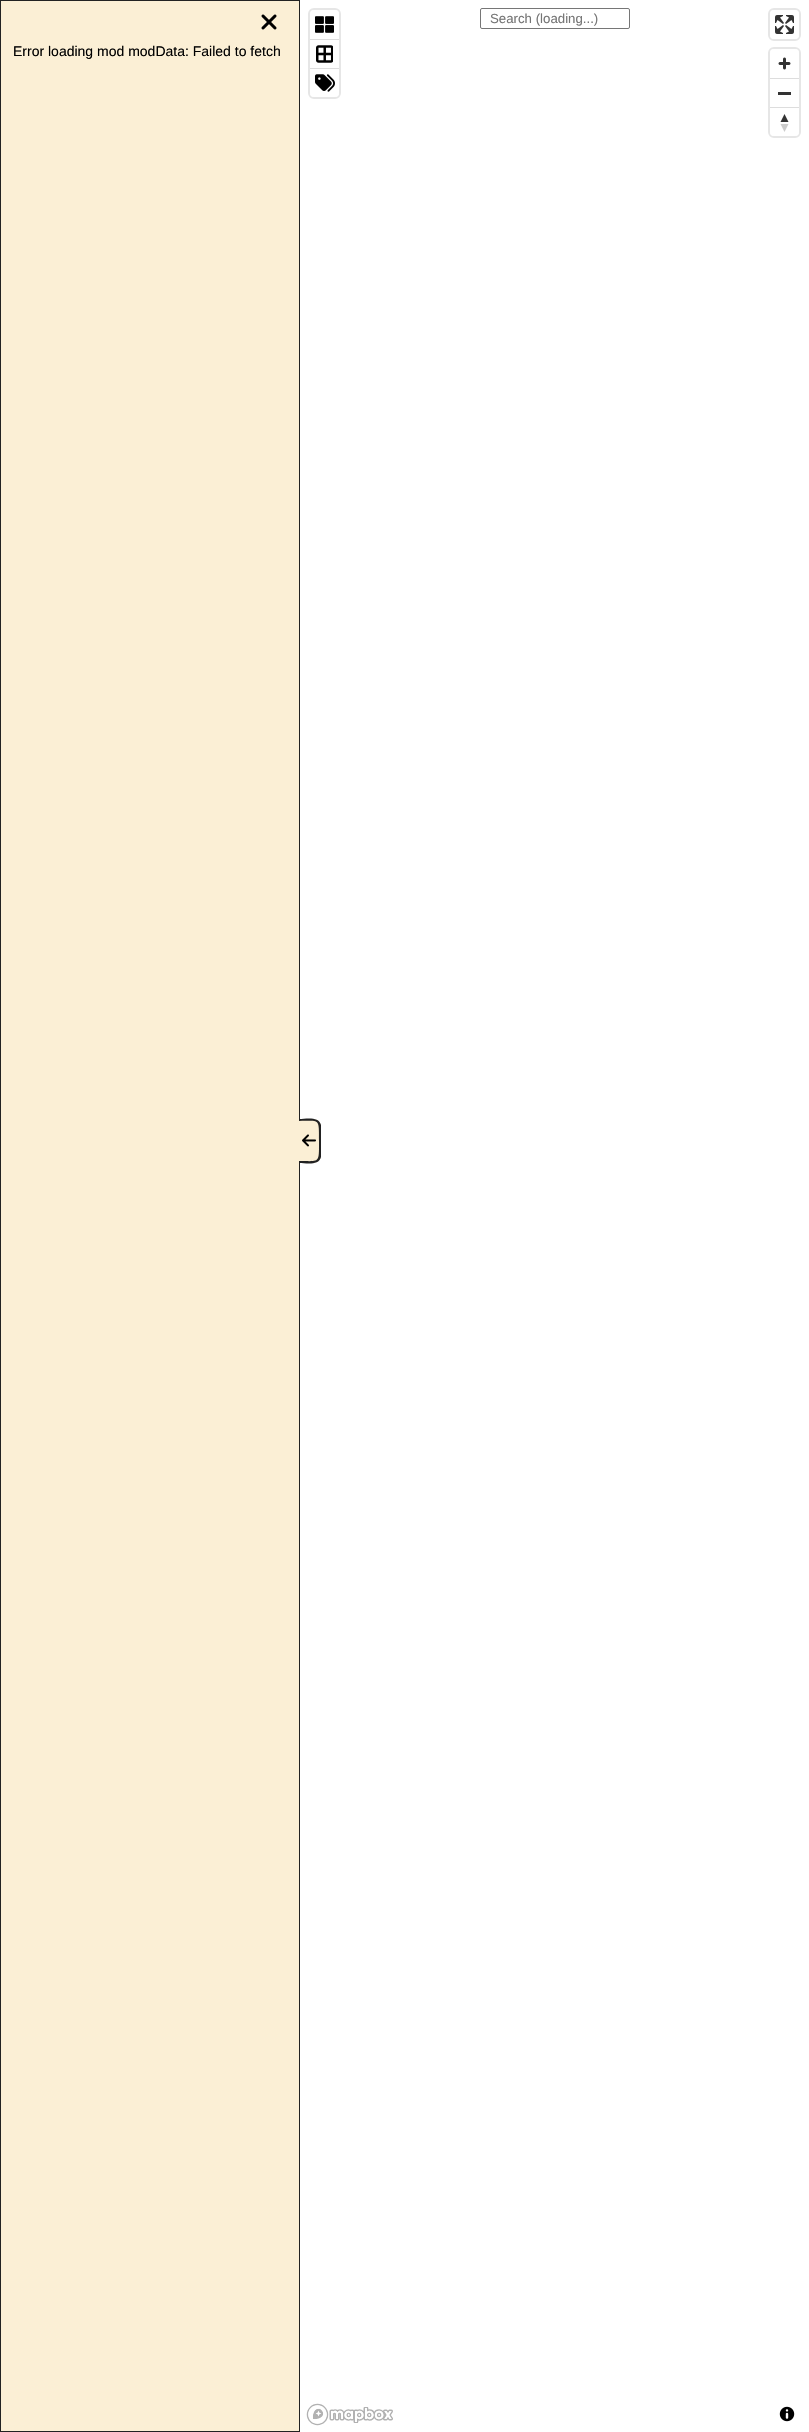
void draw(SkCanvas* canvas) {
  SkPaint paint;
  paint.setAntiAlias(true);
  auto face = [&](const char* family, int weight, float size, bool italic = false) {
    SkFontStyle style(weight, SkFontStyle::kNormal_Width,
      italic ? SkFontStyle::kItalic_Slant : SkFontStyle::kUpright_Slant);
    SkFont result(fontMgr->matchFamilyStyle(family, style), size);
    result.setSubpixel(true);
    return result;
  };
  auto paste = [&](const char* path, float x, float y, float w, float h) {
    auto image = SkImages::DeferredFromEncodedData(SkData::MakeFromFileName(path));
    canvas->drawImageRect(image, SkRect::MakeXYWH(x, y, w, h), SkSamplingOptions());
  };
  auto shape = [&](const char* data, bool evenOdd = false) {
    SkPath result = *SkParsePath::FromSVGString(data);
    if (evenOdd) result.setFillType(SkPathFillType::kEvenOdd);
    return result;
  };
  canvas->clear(0xffffffff);
  paint.setStroke(true);
  paint.setStrokeWidth(2);
  paint.setColor(0xffe6e6e6);
  canvas->drawRoundRect(SkRect::MakeXYWH(309, 9, 31, 89), 5, 5, paint);
  paint.setStroke(false);
  paint.setColor(0xffffffff);
  canvas->drawRoundRect(SkRect::MakeXYWH(310, 10, 29, 87), 4, 4, paint);
  paste("img/1.png", 315, 16, 19, 17);
  paint.setColor(0xffdddddd);
  canvas->drawRect(SkRect::MakeXYWH(310, 39, 29, 1), paint);
  paste("img/2.png", 316, 45, 17, 18);
  canvas->drawRect(SkRect::MakeXYWH(310, 68, 29, 1), paint);
  paste("img/3.png", 315, 74, 20, 18);
  paint.setStroke(true);
  paint.setColor(0xffe6e6e6);
  canvas->drawRoundRect(SkRect::MakeXYWH(769, 9, 31, 31), 5, 5, paint);
  paint.setStroke(false);
  paint.setColor(0xffffffff);
  canvas->drawRoundRect(SkRect::MakeXYWH(770, 10, 29, 29), 4, 4, paint);
  paste("img/4.png", 775, 15, 19, 19);
  paint.setStroke(true);
  paint.setColor(0xffe6e6e6);
  canvas->drawRoundRect(SkRect::MakeXYWH(769, 48, 31, 89), 5, 5, paint);
  paint.setStroke(false);
  paint.setColor(0xffffffff);
  canvas->drawRoundRect(SkRect::MakeXYWH(770, 49, 29, 87), 4, 4, paint);
  paste("img/5.png", 778, 57, 13, 13);
  {
    const struct { float x, y, w, h; SkColor color; } items[] = {
      {770, 78, 29, 1, 0xffdddddd},
      {778, 92, 13, 3, 0xff333333},
      {770, 107, 29, 1, 0xffdddddd},
    };
    for (auto [x, y, w, h, color] : items) {
      paint.setColor(color);
      canvas->drawRect(SkRect::MakeXYWH(x, y, w, h), paint);
    }
  }
  paste("img/6.png", 780, 114, 9, 18);
  paste("img/7.png", 306, 2403, 87, 23);
  paste("img/8.png", 779, 2406, 16, 16);
  paint.setStroke(true);
  paint.setStrokeWidth(1);
  paint.setColor(0xff767676);
  canvas->drawRoundRect(SkRect::MakeXYWH(480.5f, 8.5f, 149, 20), 1.5f, 1.5f, paint);
  paint.setStroke(false);
  paint.setColor(0xfffbefd5);
  canvas->drawRect(SkRect::MakeXYWH(0.5f, 0.5f, 299, 2431), paint);
  paint.setStroke(true);
  paint.setColor(0xff222222);
  canvas->drawRect(SkRect::MakeXYWH(0.5f, 0.5f, 299, 2431), paint);
  paste("img/9.png", 261, 14, 16, 16);
  paint.setStroke(false);
  paint.setColor(0xfffbefd5);
  canvas->drawPath(shape("M299 1119H313C317.5 1119 321 1122.5 321 1127V1155C321 1159.5 317.5 1163 313 1163H299Z"), paint);
  paint.setColor(0xff222222);
  canvas->drawPath(shape("M299 1119C306 1119 319 1116 321 1125V1157C319 1166 306 1163 299 1163ZM299 1121C320 1121 319 1118 319 1141C319 1164 320 1161 299 1161Z", true), paint);
  paste("img/10.png", 302, 1134, 14, 13);
  auto f0 = face("Liberation Sans", 400, 13.25f);
  paint.setColor(0xff757575);
  canvas->drawString("Search (loading...)", 490, 23, f0, paint);
  auto f1 = face("Liberation Sans", 400, 14);
  paint.setColor(0xff000000);
  canvas->drawString("Error loading mod modData: Failed to fetch", 13, 56, f1, paint);
}
